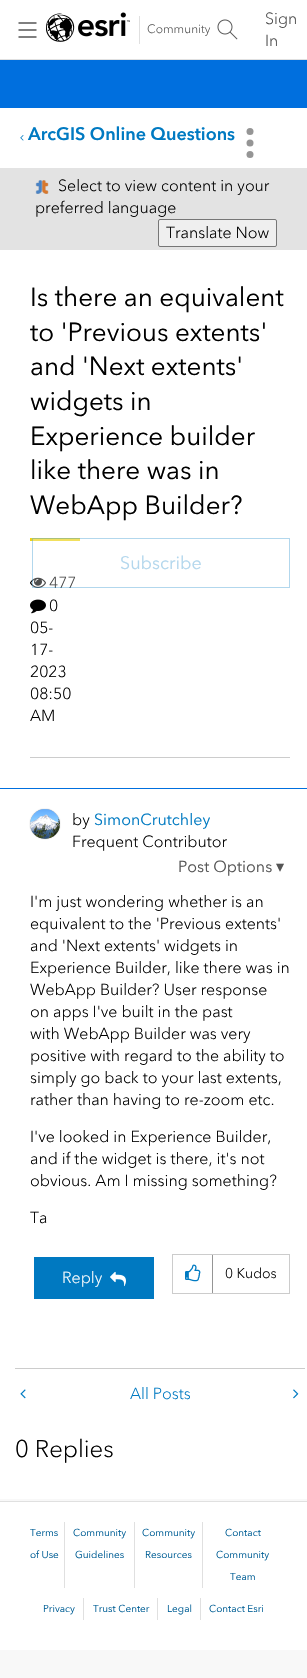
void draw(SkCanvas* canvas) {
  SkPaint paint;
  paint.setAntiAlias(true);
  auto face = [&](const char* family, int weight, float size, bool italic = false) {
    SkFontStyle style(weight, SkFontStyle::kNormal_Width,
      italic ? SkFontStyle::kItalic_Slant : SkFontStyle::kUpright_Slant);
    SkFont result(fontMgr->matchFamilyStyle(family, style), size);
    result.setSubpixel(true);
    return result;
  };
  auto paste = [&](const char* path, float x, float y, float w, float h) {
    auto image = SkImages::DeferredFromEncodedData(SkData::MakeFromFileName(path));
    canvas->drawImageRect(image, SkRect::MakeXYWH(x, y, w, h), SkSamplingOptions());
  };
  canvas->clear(0xfff8f8f8);
  paint.setColor(0xffffffff);
  canvas->drawRect(SkRect::MakeXYWH(0, 0, 307, 59), paint);
  paint.setColor(0xffe0e0e0);
  canvas->drawRect(SkRect::MakeXYWH(0, 59, 307, 1), paint);
  paste("img/1.png", 18, 22, 19, 16);
  paste("img/2.png", 46, 12, 84, 30);
  canvas->drawRect(SkRect::MakeXYWH(139, 16, 1, 28), paint);
  paste("img/3.png", 217, 19, 21, 21);
  paint.setColor(0xff006fde);
  canvas->drawRect(SkRect::MakeXYWH(0, 60, 307, 729), paint);
  paint.setColor(0xffffffff);
  canvas->drawRect(SkRect::MakeXYWH(0, 108, 307, 60), paint);
  paste("img/4.png", 20, 135, 4, 6);
  paint.setColor(0xff959595);
  canvas->drawCircle(250, 131.5f, 3.5f, paint);
  canvas->drawCircle(250, 143, 3.5f, paint);
  canvas->drawCircle(250, 154.5f, 3.5f, paint);
  paint.setColor(0xffe3e3e3);
  canvas->drawRect(SkRect::MakeXYWH(0, 168, 307, 82), paint);
  paste("img/5.png", 35, 180, 14, 14);
  paint.setColor(0xffefefef);
  canvas->drawRoundRect(SkRect::MakeXYWH(158.5f, 219.5f, 118, 27), 1.5f, 1.5f, paint);
  paint.setStroke(true);
  paint.setStrokeWidth(1);
  paint.setColor(0xff767676);
  canvas->drawRoundRect(SkRect::MakeXYWH(158.5f, 219.5f, 118, 27), 1.5f, 1.5f, paint);
  paint.setStroke(false);
  paint.setColor(0xffffffff);
  canvas->drawRect(SkRect::MakeXYWH(0, 250, 307, 538), paint);
  paint.setColor(0xffedd317);
  canvas->drawRect(SkRect::MakeXYWH(30, 538, 50, 3), paint);
  paste("img/6.png", 30, 577, 16, 11);
  paste("img/7.png", 30, 599, 16, 15);
  paint.setColor(0xffcccccc);
  canvas->drawRect(SkRect::MakeXYWH(30, 757, 260, 1), paint);
  paint.setColor(0xffffffff);
  canvas->drawRect(SkRect::MakeXYWH(0, 789, 307, 710), paint);
  paint.setColor(0xff959595);
  paint.setMaskFilter(SkMaskFilter::MakeBlur(kNormal_SkBlurStyle, 0.5f));
  canvas->drawRoundRect(SkRect::MakeXYWH(30, 809, 30, 30), 15, 15, paint);
  paint.setMaskFilter(nullptr);
  paste("img/8.png", 30, 809, 30, 30);
  paint.setColor(0xff0079c1);
  canvas->drawRect(SkRect::MakeXYWH(34, 1257, 120, 42), paint);
  paste("img/9.png", 110, 1271, 16, 16);
  paint.setStroke(true);
  paint.setColor(0xffcccccc);
  canvas->drawRect(SkRect::MakeXYWH(172.5f, 1254.5f, 117, 39), paint);
  paste("img/10.png", 185, 1264, 16, 18);
  paint.setStroke(false);
  paint.setColor(0xff959595);
  canvas->drawRect(SkRect::MakeXYWH(212, 1255, 1, 38), paint);
  paint.setColor(0xffcccccc);
  canvas->drawRect(SkRect::MakeXYWH(15, 1368, 290, 1), paint);
  paste("img/11.png", 20, 1389, 6, 10);
  paste("img/12.png", 293, 1389, 6, 10);
  {
    const struct { float x, y, w, h; SkColor color; } items[] = {
      {0, 1502, 307, 148, 0xffffffff},
      {0, 1501, 307, 1, 0xffe0e0e0},
      {64, 1522, 1, 66, 0xffe0e0e0},
      {134, 1522, 1, 66, 0xffe0e0e0},
      {202, 1522, 1, 66, 0xffe0e0e0},
      {83, 1598, 1, 22, 0xffe0e0e0},
      {157, 1598, 1, 22, 0xffe0e0e0},
      {200, 1598, 1, 22, 0xffe0e0e0},
    };
    for (auto [x, y, w, h, color] : items) {
      paint.setColor(color);
      canvas->drawRect(SkRect::MakeXYWH(x, y, w, h), paint);
    }
  }
  auto f0 = face("Avenir Next", 300, 12);
  paint.setColor(0xff555555);
  canvas->drawString("Community", 147, 33, f0, paint);
  auto f1 = face("Avenir Next", 300, 16);
  paint.setColor(0xff4c4c4c);
  canvas->drawString("Sign", 265, 24, f1, paint);
  canvas->drawString("In", 265, 46, f1, paint);
  auto f2 = face("Avenir Next", 700, 18);
  paint.setColor(0xff007ac2);
  canvas->drawString("ArcGIS Online Questions", 28, 140, f2, paint);
  paint.setColor(0xff000000);
  {
    const struct { const char* s; float x, y; } items[] = {
      {"Select to view content in your", 58, 191},
      {"preferred language", 35, 213},
      {"Translate Now", 166, 238},
    };
    for (auto [s, x, y] : items) {
      canvas->drawString(s, x, y, f1, paint);
    }
  }
  auto f3 = face("Avenir Next", 400, 26);
  {
    const struct { const char* s; float x, y; } items[] = {
      {"Is there an equivalent", 30, 306},
      {"to 'Previous extents'", 30, 341},
      {"and 'Next extents'", 30, 375},
      {"widgets in", 30, 410},
      {"Experience builder", 30, 445},
      {"like there was in", 30, 479},
      {"WebApp Builder?", 30, 514},
    };
    for (auto [s, x, y] : items) {
      canvas->drawString(s, x, y, f3, paint);
    }
  }
  canvas->drawString("477", 49, 588, f1, paint);
  paint.setColor(0x4dffffff);
  canvas->drawRect(SkRect::MakeXYWH(32, 538, 48, 50), paint);
  paint.setStroke(true);
  paint.setColor(0x4d007ac2);
  canvas->drawRect(SkRect::MakeXYWH(32.5f, 538.5f, 257, 49), paint);
  auto f4 = face("Avenir Next", 400, 18);
  paint.setStroke(false);
  paint.setColor(0xffb3d7ed);
  canvas->drawString("Subscribe", 120, 569, f4, paint);
  paint.setColor(0xff000000);
  {
    const struct { const char* s; float x, y; } items[] = {
      {"0", 49, 611},
      {"05-", 30, 633},
      {"17-", 30, 655},
      {"2023", 30, 677},
      {"08:50", 30, 699},
      {"AM", 30, 721},
      {"by", 72, 825},
    };
    for (auto [s, x, y] : items) {
      canvas->drawString(s, x, y, f1, paint);
    }
  }
  auto f5 = face("Avenir Next", 400, 16);
  paint.setColor(0xff007ac2);
  canvas->drawString("SimonCrutchley", 94, 825, f5, paint);
  paint.setColor(0xff000000);
  canvas->drawString("Frequent Contributor", 72, 847, f1, paint);
  paint.setColor(0xff555555);
  canvas->drawString("Post Options", 178, 872, f5, paint);
  auto f6 = face("DejaVu Sans", 400, 16);
  canvas->drawString("▾", 276, 872, f6, paint);
  paint.setColor(0xff000000);
  {
    const struct { const char* s; float x, y; } items[] = {
      {"I'm just wondering whether is an", 30, 907},
      {"equivalent to the 'Previous extents'", 30, 929},
      {"and 'Next extents' widgets in", 30, 951},
      {"Experience Builder, like there was in", 30, 973},
      {"WebApp Builder? User response", 30, 995},
      {"on apps I've built in the past", 30, 1017},
      {"with WebApp Builder was very", 30, 1039},
      {"positive with regard to the ability to", 30, 1061},
      {"simply go back to your last extents,", 30, 1083},
      {"rather than having to re-zoom etc.", 30, 1105},
      {"I've looked in Experience Builder,", 30, 1142},
      {"and if the widget is there, it's not", 30, 1164},
      {"obvious. Am I missing something?", 30, 1186},
      {"Ta", 30, 1223},
    };
    for (auto [s, x, y] : items) {
      canvas->drawString(s, x, y, f1, paint);
    }
  }
  paint.setColor(0xffffffff);
  canvas->drawString("Reply", 62, 1283, f1, paint);
  auto f7 = face("Avenir Next", 300, 14);
  paint.setColor(0xff000000);
  canvas->drawString("0 Kudos", 225, 1278, f7, paint);
  paint.setColor(0xff007ac2);
  canvas->drawString("All Posts", 130, 1399, f1, paint);
  auto f8 = face("Avenir Next", 300, 24);
  paint.setColor(0xff000000);
  canvas->drawString("0 Replies", 15, 1457, f8, paint);
  auto f9 = face("Avenir Next", 400, 10);
  paint.setColor(0xff005e95);
  {
    const struct { const char* s; float x, y; } items[] = {
      {"Terms", 30, 1536},
      {"of Use", 30, 1558},
      {"Community", 73, 1536},
      {"Guidelines", 75, 1558},
      {"Community", 142, 1536},
      {"Resources", 145, 1558},
      {"Contact", 225, 1536},
      {"Community", 216, 1558},
      {"Team", 230, 1580},
      {"Privacy", 43, 1612},
      {"Trust Center", 93, 1612},
      {"Legal", 167, 1612},
      {"Contact Esri", 209, 1612},
    };
    for (auto [s, x, y] : items) {
      canvas->drawString(s, x, y, f9, paint);
    }
  }
}
